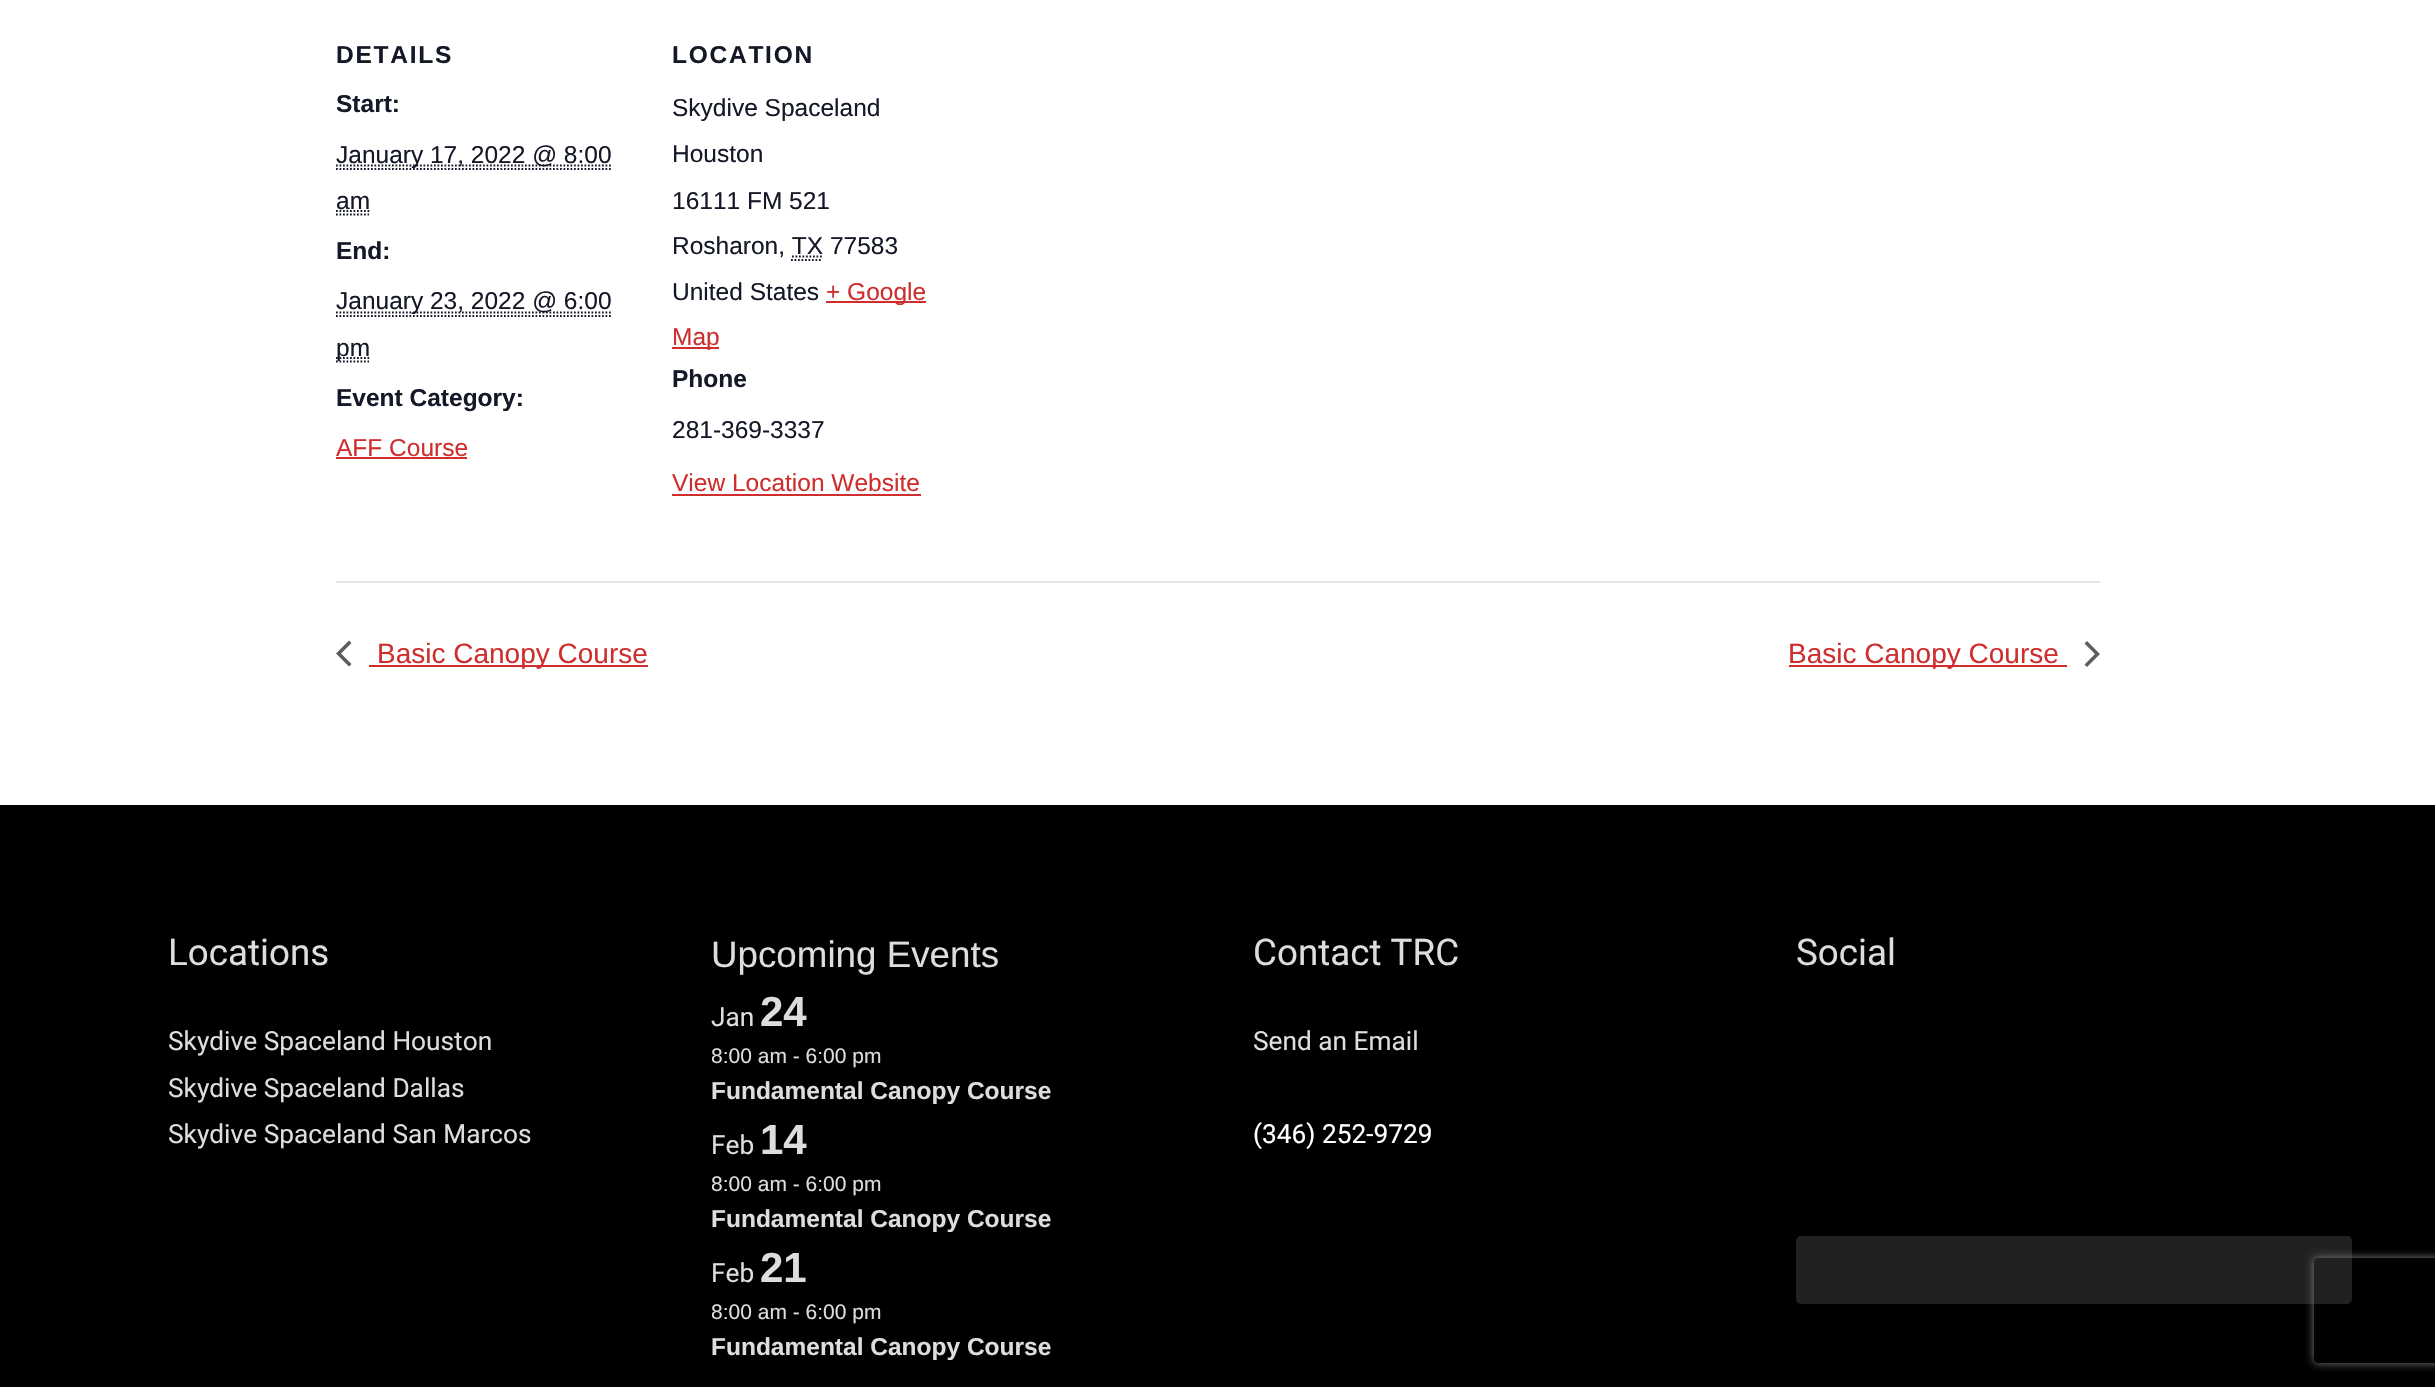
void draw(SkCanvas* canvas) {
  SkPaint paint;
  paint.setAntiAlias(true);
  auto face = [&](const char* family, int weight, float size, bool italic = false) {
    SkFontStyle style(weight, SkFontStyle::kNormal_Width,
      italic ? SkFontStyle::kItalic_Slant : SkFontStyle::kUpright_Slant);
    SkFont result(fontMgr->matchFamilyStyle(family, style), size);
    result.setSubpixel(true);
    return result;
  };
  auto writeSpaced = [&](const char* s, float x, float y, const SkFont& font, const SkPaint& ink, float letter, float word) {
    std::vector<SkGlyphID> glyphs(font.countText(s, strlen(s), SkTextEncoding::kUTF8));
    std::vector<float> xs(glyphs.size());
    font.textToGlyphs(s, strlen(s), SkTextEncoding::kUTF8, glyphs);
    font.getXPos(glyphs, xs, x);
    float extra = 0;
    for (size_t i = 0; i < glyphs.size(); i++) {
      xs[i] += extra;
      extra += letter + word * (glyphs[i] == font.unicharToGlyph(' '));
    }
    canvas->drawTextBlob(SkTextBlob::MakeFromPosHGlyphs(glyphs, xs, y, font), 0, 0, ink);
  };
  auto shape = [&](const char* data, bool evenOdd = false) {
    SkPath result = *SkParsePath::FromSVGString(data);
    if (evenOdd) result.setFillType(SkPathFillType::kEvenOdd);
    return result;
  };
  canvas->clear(0xffffffff);
  paint.setStroke(true);
  paint.setStrokeWidth(1.8f);
  paint.setColor(0xff141827);
  paint.setPathEffect(SkDashPathEffect::Make({{1.75f, 1.75f}}, 0));
  canvas->drawPath(shape("M336 169H611"), paint);
  paint.setPathEffect(nullptr);
  paint.setPathEffect(SkDashPathEffect::Make({{1.75f, 1.75f}}, 0));
  canvas->drawPath(shape("M336 165.5H611.5"), paint);
  paint.setPathEffect(nullptr);
  paint.setPathEffect(SkDashPathEffect::Make({{1.75f, 1.75f}}, 0));
  canvas->drawPath(shape("M336 214.5H369"), paint);
  paint.setPathEffect(nullptr);
  paint.setPathEffect(SkDashPathEffect::Make({{1.75f, 1.75f}}, 0));
  canvas->drawPath(shape("M336 211H370"), paint);
  paint.setPathEffect(nullptr);
  paint.setPathEffect(SkDashPathEffect::Make({{1.75f, 1.75f}}, 0));
  canvas->drawPath(shape("M336 316H611"), paint);
  paint.setPathEffect(nullptr);
  paint.setPathEffect(SkDashPathEffect::Make({{1.75f, 1.75f}}, 0));
  canvas->drawPath(shape("M336 312.5H611.5"), paint);
  paint.setPathEffect(nullptr);
  paint.setPathEffect(SkDashPathEffect::Make({{1.75f, 1.75f}}, 0));
  canvas->drawPath(shape("M336 361.5H369"), paint);
  paint.setPathEffect(nullptr);
  paint.setPathEffect(SkDashPathEffect::Make({{1.75f, 1.75f}}, 0));
  canvas->drawPath(shape("M336 358H370"), paint);
  paint.setPathEffect(nullptr);
  paint.setStroke(false);
  paint.setColor(0xffcf2e2e);
  canvas->drawRect(SkRect::MakeXYWH(336, 457, 131, 2), paint);
  paint.setStroke(true);
  paint.setColor(0xff141827);
  paint.setPathEffect(SkDashPathEffect::Make({{1.75f, 1.75f}}, 0));
  canvas->drawPath(shape("M791 260H822.5M792 256.5H823"), paint);
  paint.setPathEffect(nullptr);
  paint.setStroke(false);
  {
    const struct { float x, y, w, h; SkColor color; } items[] = {
      {826, 301, 100, 2, 0xffcf2e2e},
      {672, 347, 47, 2, 0xffcf2e2e},
      {672, 494, 249, 2, 0xffcf2e2e},
      {336, 581, 1764, 2, 0xffe4e4e4},
    };
    for (auto [x, y, w, h, color] : items) {
      paint.setColor(color);
      canvas->drawRect(SkRect::MakeXYWH(x, y, w, h), paint);
    }
  }
  paint.setColor(0xff5d5d5d);
  canvas->drawPath(shape("M351.5 664L349 666.5L336 653.5L349 640.5L351.5 643L341 653.5Z"), paint);
  paint.setColor(0xffcf2e2e);
  canvas->drawRect(SkRect::MakeXYWH(369, 665, 279, 2), paint);
  canvas->drawRect(SkRect::MakeXYWH(1789, 665, 278, 2), paint);
  paint.setColor(0xff5d5d5d);
  canvas->drawPath(shape("M2084.5 643.5L2087 641L2100 654L2087 667L2084.5 664.5L2095 654Z"), paint);
  paint.setColor(0xff000000);
  canvas->drawRect(SkRect::MakeXYWH(0, 805, 2435, 582), paint);
  paint.setColor(0xff212121);
  canvas->drawRoundRect(SkRect::MakeXYWH(1796, 1236, 556, 68), 5, 5, paint);
  canvas->save();
  canvas->clipPath(shape("M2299 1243H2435V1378H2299ZM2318 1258H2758C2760 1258 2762 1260 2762 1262V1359C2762 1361 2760 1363 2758 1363H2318C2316 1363 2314 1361 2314 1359V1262C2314 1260 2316 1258 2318 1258Z", true), true);
  paint.setColor(0xff808080);
  paint.setMaskFilter(SkMaskFilter::MakeBlur(kNormal_SkBlurStyle, 4.5f));
  canvas->drawRoundRect(SkRect::MakeXYWH(2314, 1258, 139, 105), 4, 4, paint);
  paint.setMaskFilter(nullptr);
  canvas->restore();
  auto f0 = face("Liberation Sans", 700, 24.5f);
  paint.setColor(0xff141827);
  writeSpaced("DETAILS", 336, 63, f0, paint, 1.75f, 0);
  canvas->drawString("Start:", 336, 112, f0, paint);
  auto f1 = face("Liberation Sans", 400, 24.5f);
  canvas->drawString("January 17, 2022 @ 8:00", 336, 163, f1, paint);
  canvas->drawString("am", 336, 209, f1, paint);
  canvas->drawString("End:", 336, 259, f0, paint);
  canvas->drawString("January 23, 2022 @ 6:00", 336, 309, f1, paint);
  canvas->drawString("pm", 336, 356, f1, paint);
  canvas->drawString("Event Category:", 336, 406, f0, paint);
  paint.setColor(0xffcf2e2e);
  canvas->drawString("AFF Course", 336, 456, f1, paint);
  paint.setColor(0xff141827);
  writeSpaced("LOCATION", 672, 63, f0, paint, 1.75f, 0);
  {
    const struct { const char* s; float x, y; } items[] = {
      {"Skydive Spaceland", 672, 116},
      {"Houston", 672, 162},
      {"16111 FM 521", 672, 209},
      {"Rosharon, TX 77583", 672, 254},
      {"United States", 672, 300},
    };
    for (auto [s, x, y] : items) {
      canvas->drawString(s, x, y, f1, paint);
    }
  }
  paint.setColor(0xffcf2e2e);
  canvas->drawString("+ Google", 826, 300, f1, paint);
  canvas->drawString("Map", 672, 345, f1, paint);
  paint.setColor(0xff141827);
  canvas->drawString("Phone", 672, 387, f0, paint);
  canvas->drawString("281-369-3337", 672, 438, f1, paint);
  paint.setColor(0xffcf2e2e);
  canvas->drawString("View Location Website", 672, 491, f1, paint);
  auto f2 = face("Liberation Sans", 400, 28);
  canvas->drawString("Basic Canopy Course", 377, 663, f2, paint);
  canvas->drawString("Basic Canopy Course", 1788, 663, f2, paint);
  auto f3 = face("Roboto", 400, 36.75f);
  paint.setColor(0xffdddddd);
  canvas->drawString("Locations", 168, 965, f3, paint);
  auto f4 = face("Roboto", 400, 26.25f);
  {
    const struct { const char* s; float x, y; } items[] = {
      {"Skydive Spaceland Houston", 168, 1050},
      {"Skydive Spaceland Dallas", 168, 1097},
      {"Skydive Spaceland San Marcos", 168, 1143},
    };
    for (auto [s, x, y] : items) {
      canvas->drawString(s, x, y, f4, paint);
    }
  }
  auto f5 = face("Liberation Sans", 400, 36.75f);
  canvas->drawString("Upcoming Events", 711, 967, f5, paint);
  canvas->drawString("Jan", 711, 1026, f4, paint);
  auto f6 = face("Liberation Sans", 700, 42);
  canvas->drawString("24", 760, 1026, f6, paint);
  auto f7 = face("Liberation Sans", 400, 21);
  canvas->drawString("8:00 am - 6:00 pm", 711, 1063, f7, paint);
  canvas->drawString("Fundamental Canopy Course", 711, 1099, f0, paint);
  canvas->drawString("Feb", 711, 1154, f4, paint);
  canvas->drawString("14", 760, 1154, f6, paint);
  canvas->drawString("8:00 am - 6:00 pm", 711, 1191, f7, paint);
  canvas->drawString("Fundamental Canopy Course", 711, 1227, f0, paint);
  canvas->drawString("Feb", 711, 1282, f4, paint);
  canvas->drawString("21", 760, 1282, f6, paint);
  canvas->drawString("8:00 am - 6:00 pm", 711, 1319, f7, paint);
  canvas->drawString("Fundamental Canopy Course", 711, 1355, f0, paint);
  canvas->drawString("Contact TRC", 1253, 965, f3, paint);
  canvas->drawString("Send an Email", 1253, 1050, f4, paint);
  paint.setColor(0xffffffff);
  canvas->drawString("(346) 252-9729", 1253, 1143, f4, paint);
  paint.setColor(0xffdddddd);
  canvas->drawString("Social", 1796, 965, f3, paint);
}
